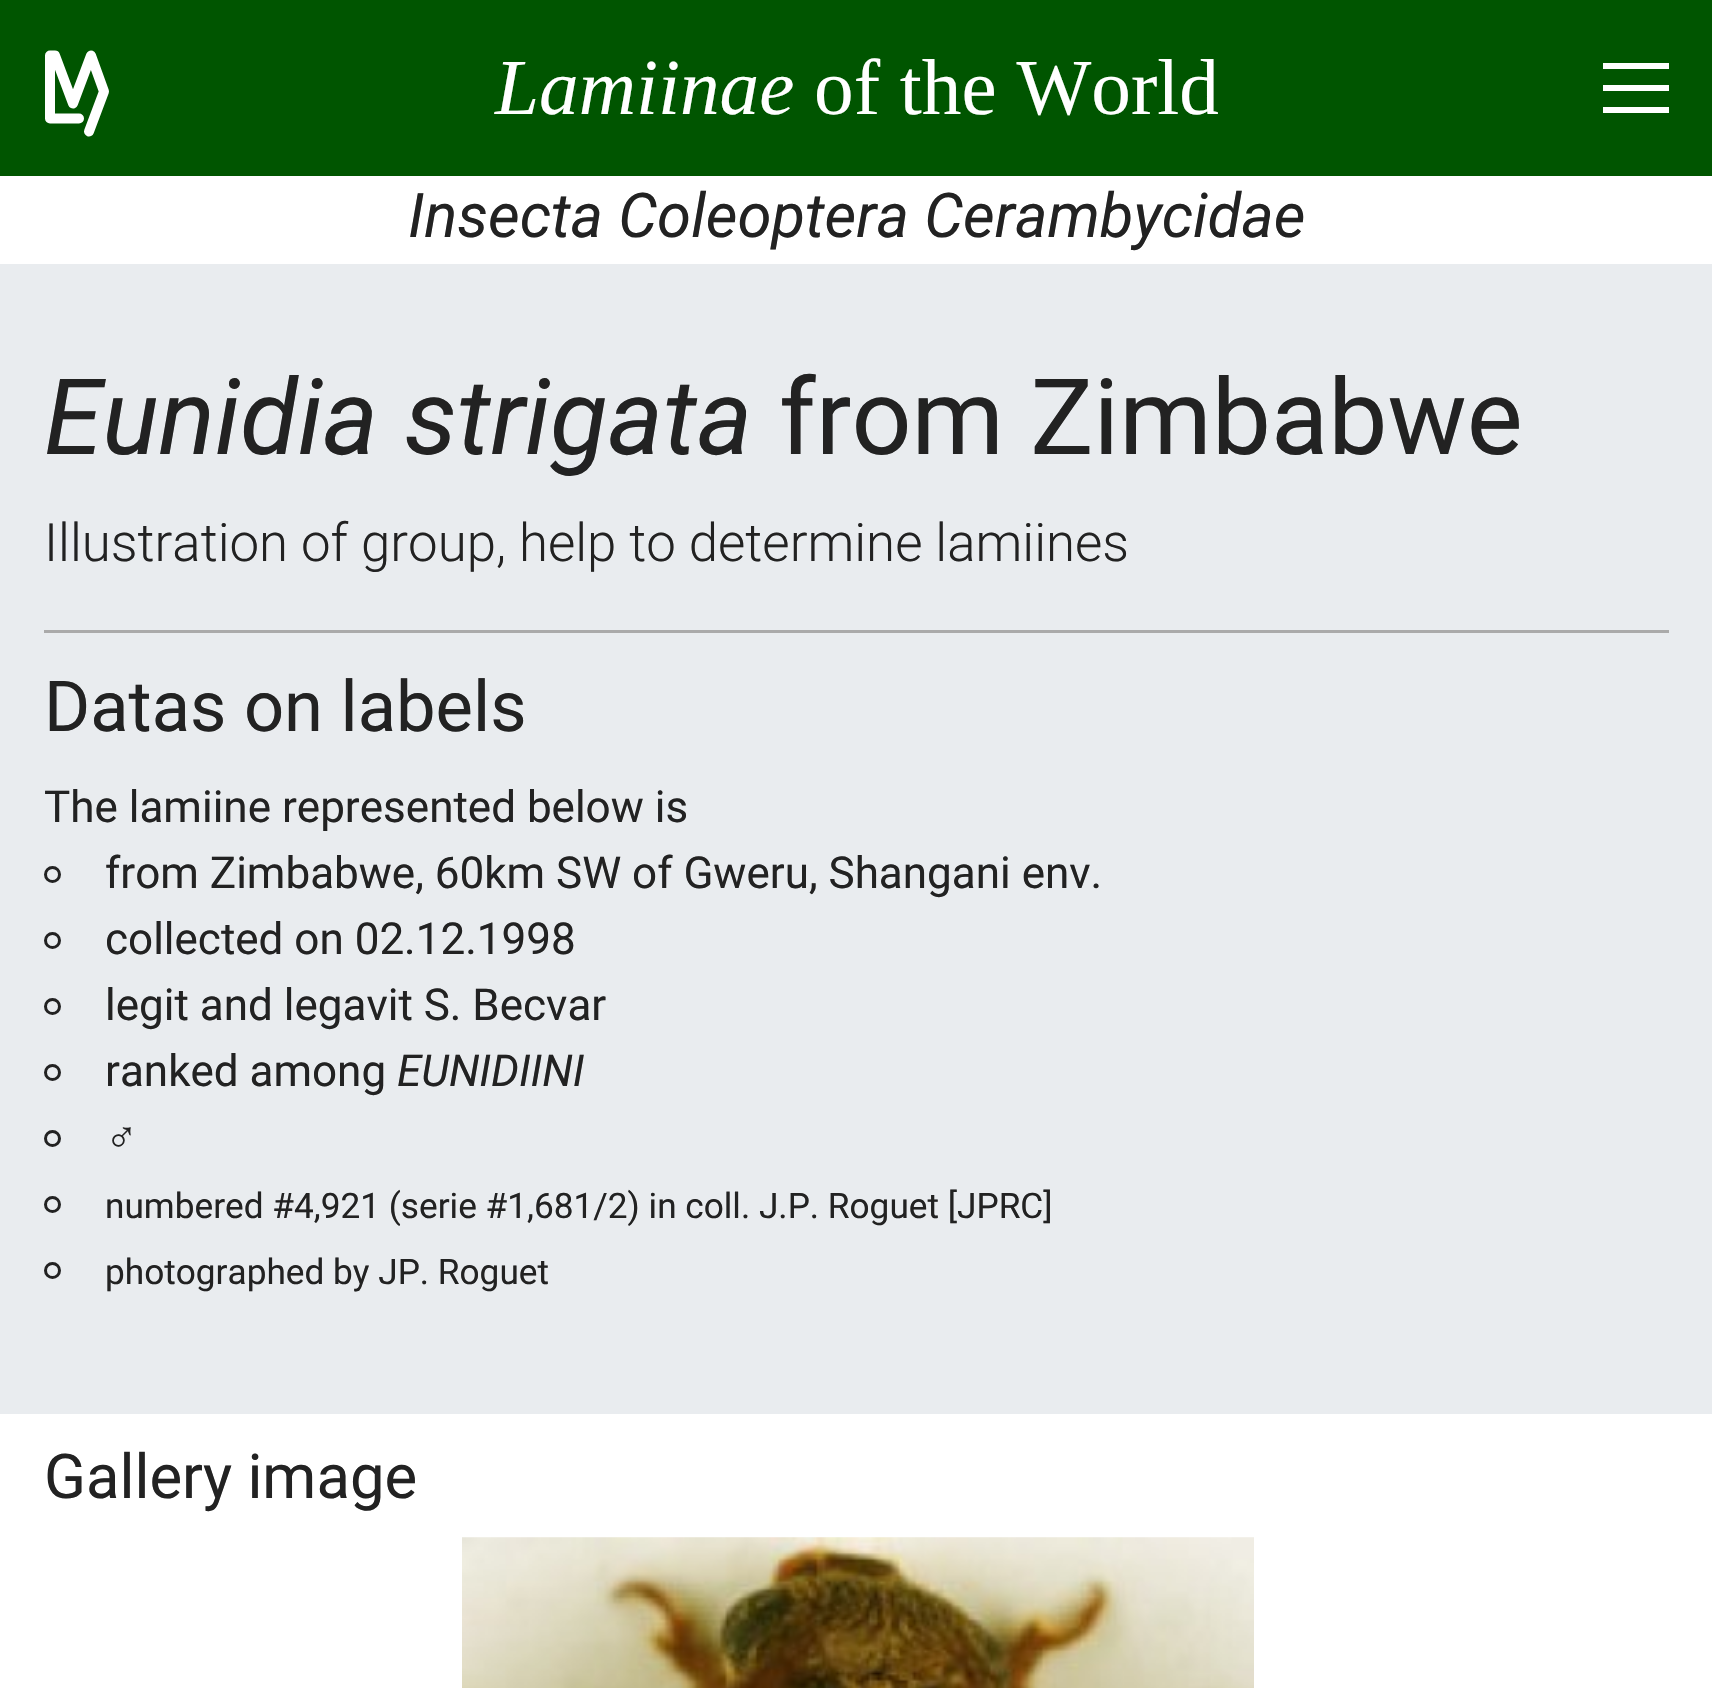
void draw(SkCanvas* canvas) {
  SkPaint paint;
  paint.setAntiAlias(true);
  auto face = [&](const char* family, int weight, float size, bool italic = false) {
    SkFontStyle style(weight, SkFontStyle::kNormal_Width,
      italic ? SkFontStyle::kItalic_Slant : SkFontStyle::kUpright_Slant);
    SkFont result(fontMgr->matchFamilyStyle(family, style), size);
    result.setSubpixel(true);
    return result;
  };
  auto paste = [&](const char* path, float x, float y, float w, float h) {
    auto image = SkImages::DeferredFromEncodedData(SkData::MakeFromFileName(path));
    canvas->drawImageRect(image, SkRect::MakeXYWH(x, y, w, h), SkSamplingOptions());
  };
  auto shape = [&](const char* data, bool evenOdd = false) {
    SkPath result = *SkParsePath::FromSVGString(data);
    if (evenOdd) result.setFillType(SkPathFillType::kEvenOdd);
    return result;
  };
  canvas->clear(0xffffffff);
  paint.setColor(0xff005500);
  canvas->drawRect(SkRect::MakeXYWH(0, 0, 1712, 176), paint);
  paint.setStroke(true);
  paint.setStrokeWidth(10);
  paint.setStrokeCap(SkPaint::kRound_Cap);
  paint.setStrokeJoin(SkPaint::kRound_Join);
  paint.setColor(0xffffffff);
  canvas->drawPath(shape("M79 118.5H50V55.5H55L73 103.5L91 55.5L104 91.5L89 131.5"), paint);
  paint.setStroke(false);
  {
    const struct { float x, y, w, h; SkColor color; } items[] = {
      {1603, 63, 66, 6, 0xffffffff},
      {1603, 85, 66, 6, 0xffffffff},
      {1603, 107, 66, 6, 0xffffffff},
      {0, 264, 1712, 1150, 0xffe9ecef},
      {44, 630, 1625, 3, 0xffaaaaaa},
    };
    for (auto [x, y, w, h, color] : items) {
      paint.setColor(color);
      canvas->drawRect(SkRect::MakeXYWH(x, y, w, h), paint);
    }
  }
  paint.setStroke(true);
  paint.setStrokeWidth(3);
  paint.setStrokeCap(SkPaint::kButt_Cap);
  paint.setStrokeJoin(SkPaint::kMiter_Join);
  paint.setColor(0xff222222);
  canvas->drawCircle(52.5f, 874.5f, 7, paint);
  canvas->drawCircle(52.5f, 940.5f, 7, paint);
  canvas->drawCircle(52.5f, 1006.5f, 7, paint);
  canvas->drawCircle(52.5f, 1072.5f, 7, paint);
  canvas->drawCircle(52.5f, 1138.5f, 7, paint);
  canvas->drawCircle(52.5f, 1204.5f, 7, paint);
  canvas->drawCircle(52.5f, 1270.5f, 7, paint);
  paste("img/1.png", 462, 1537, 792, 151);
  auto f0 = face("Liberation Serif", 400, 79.25f, true);
  paint.setStroke(false);
  paint.setColor(0xffffffff);
  canvas->drawString("Lamiinae", 495, 114, f0, paint);
  auto f1 = face("Liberation Serif", 400, 79.25f);
  canvas->drawString("of the World", 814, 114, f1, paint);
  auto f2 = face("Roboto", 400, 61.6f, true);
  paint.setColor(0xff222222);
  canvas->drawString("Insecta Coleoptera Cerambycidae", 408, 237, f2, paint);
  auto f3 = face("Roboto", 400, 105.5f, true);
  canvas->drawString("Eunidia strigata", 44, 454, f3, paint);
  auto f4 = face("Roboto", 400, 105.5f);
  canvas->drawString("from Zimbabwe", 779, 454, f4, paint);
  auto f5 = face("Roboto", 300, 52.8f);
  canvas->drawString("Illustration of group, help to determine lamiines", 44, 561, f5, paint);
  auto f6 = face("Roboto", 400, 70.5f);
  canvas->drawString("Datas on labels", 44, 731, f6, paint);
  auto f7 = face("Roboto", 400, 44);
  {
    const struct { const char* s; float x, y; } items[] = {
      {"The lamiine represented below is", 44, 822},
      {"from Zimbabwe, 60km SW of Gweru, Shangani env.", 105, 888},
      {"collected on 02.12.1998", 105, 954},
      {"legit and legavit S. Becvar", 105, 1020},
      {"ranked among", 105, 1086},
    };
    for (auto [s, x, y] : items) {
      canvas->drawString(s, x, y, f7, paint);
    }
  }
  auto f8 = face("Roboto", 400, 44, true);
  canvas->drawString("EUNIDIINI", 397, 1086, f8, paint);
  auto f9 = face("Liberation Sans", 400, 44);
  canvas->drawString("♂", 105, 1152, f9, paint);
  auto f10 = face("Roboto", 400, 35.2f);
  canvas->drawString("numbered #4,921 (serie #1,681/2) in coll. J.P. Roguet [JPRC]", 105, 1218, f10, paint);
  canvas->drawString("photographed by JP. Roguet", 105, 1284, f10, paint);
  auto f11 = face("Roboto", 400, 61.6f);
  canvas->drawString("Gallery image", 44, 1498, f11, paint);
}
